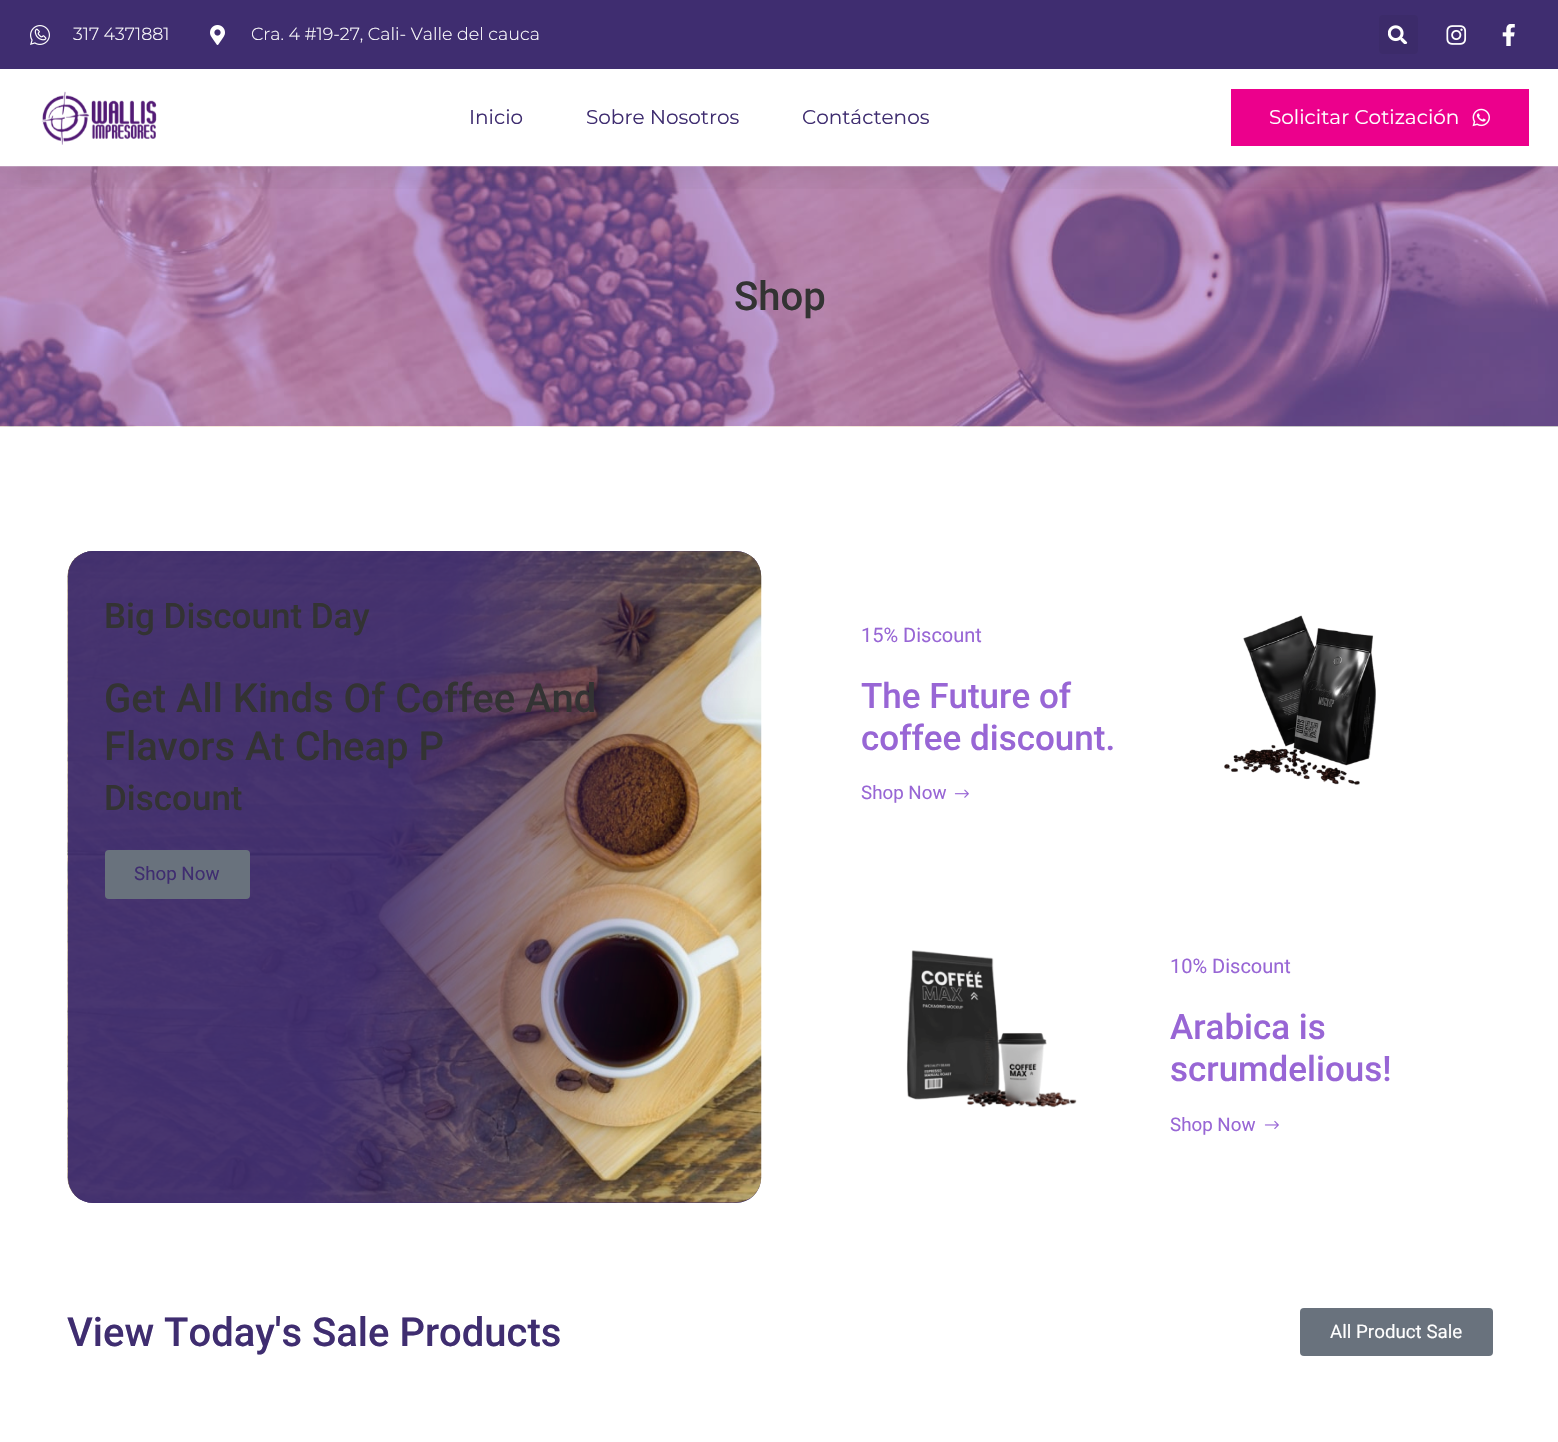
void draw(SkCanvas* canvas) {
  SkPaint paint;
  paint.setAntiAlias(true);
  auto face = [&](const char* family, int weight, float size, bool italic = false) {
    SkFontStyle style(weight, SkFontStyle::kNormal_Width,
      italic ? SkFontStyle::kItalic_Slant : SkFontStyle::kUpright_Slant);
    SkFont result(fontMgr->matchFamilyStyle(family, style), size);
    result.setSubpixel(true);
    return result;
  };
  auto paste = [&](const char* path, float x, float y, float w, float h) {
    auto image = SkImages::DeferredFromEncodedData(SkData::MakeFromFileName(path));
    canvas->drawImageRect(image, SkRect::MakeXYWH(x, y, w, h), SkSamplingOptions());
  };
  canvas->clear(0xffffffff);
  paste("img/8.png", 0, 166, 1558, 261);
  canvas->save();
  canvas->clipRect(SkRect::MakeXYWH(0, 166, 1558, 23));
  paint.setColor(0x1a000000);
  paint.setMaskFilter(SkMaskFilter::MakeBlur(kNormal_SkBlurStyle, 19));
  canvas->drawRect(SkRect::MakeXYWH(0, 6, 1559, 167), paint);
  paint.setMaskFilter(nullptr);
  canvas->restore();
  paint.setColor(0xff3f2d70);
  canvas->drawRect(SkRect::MakeXYWH(0, 0, 1558, 69), paint);
  paste("img/1.png", 30, 25, 20, 20);
  paste("img/2.png", 210, 25, 15, 20);
  paint.setColor(0xff3c2b6a);
  canvas->drawRoundRect(SkRect::MakeXYWH(1379, 15, 39, 39), 4, 4, paint);
  paste("img/3.png", 1388, 25, 20, 19);
  paste("img/4.png", 1446, 25, 21, 20);
  paste("img/5.png", 1502, 24, 13, 22);
  paste("img/6.png", 41, 91, 116, 54);
  paint.setColor(0xffec008c);
  canvas->drawRect(SkRect::MakeXYWH(1231, 89, 298, 57), paint);
  paste("img/7.png", 1472, 108, 18, 19);
  paint.setColor(0xff3f2d70);
  canvas->drawRoundRect(SkRect::MakeXYWH(68, 551, 693, 652), 25, 25, paint);
  paste("img/9.png", 67, 551, 695, 652);
  {
    const SkColor colors[] = {0xeb3f2d70, 0x003f2d70};
    const float stops[] = {0.46f, 0.84f};
    const SkPoint ends[] = {{11, 776}, {817, 977}};
    paint.setShader(SkGradientShader::MakeLinear(ends, colors, stops, 2, SkTileMode::kClamp));
    paint.setAlpha(255);
  }
  canvas->drawRoundRect(SkRect::MakeXYWH(68, 551, 693, 652), 25, 25, paint);
  paint.setShader(nullptr);
  paint.setColor(0xff69727d);
  canvas->drawRoundRect(SkRect::MakeXYWH(105, 850, 145, 49), 4, 4, paint);
  paste("img/10.png", 954, 789, 15, 9);
  paste("img/11.png", 1224, 615, 152, 170);
  paste("img/12.png", 906, 950, 171, 158);
  paste("img/13.png", 1264, 1120, 15, 9);
  canvas->drawRoundRect(SkRect::MakeXYWH(1300, 1308, 193, 48), 4, 4, paint);
  auto f0 = face("Montserrat", 300, 17.5f);
  paint.setColor(0xffffffff);
  canvas->drawString("317 4371881", 73, 40, f0, paint);
  canvas->drawString("Cra. 4 #19-27, Cali- Valle del cauca", 251, 40, f0, paint);
  auto f1 = face("Montserrat", 400, 20);
  paint.setColor(0xff3f2d70);
  {
    const struct { const char* s; float x, y; } items[] = {
      {"Inicio", 469, 124},
      {"Sobre Nosotros", 586, 124},
      {"Contáctenos", 802, 124},
    };
    for (auto [s, x, y] : items) {
      canvas->drawString(s, x, y, f1, paint);
    }
  }
  paint.setColor(0xffffffff);
  canvas->drawString("Solicitar Cotización", 1269, 124, f1, paint);
  auto f2 = face("Roboto", 500, 40);
  paint.setColor(0xff333333);
  canvas->drawString("Shop", 734, 310, f2, paint);
  auto f3 = face("Roboto", 500, 35);
  canvas->drawString("Big Discount Day", 104, 628, f3, paint);
  canvas->drawString("Get All Kinds Of Coffee And", 104, 712, f2, paint);
  canvas->drawString("Flavors At Cheap P", 104, 760, f2, paint);
  canvas->drawString("Discount", 104, 810, f3, paint);
  auto f4 = face("Roboto", 400, 18.75f);
  paint.setColor(0xff3f2d70);
  canvas->drawString("Shop Now", 134, 880, f4, paint);
  auto f5 = face("Roboto", 400, 20);
  paint.setColor(0xff9866d5);
  canvas->drawString("15% Discount", 861, 642, f5, paint);
  canvas->drawString("The Future of", 861, 708, f3, paint);
  canvas->drawString("coffee discount.", 861, 750, f3, paint);
  canvas->drawString("Shop Now", 861, 799, f4, paint);
  canvas->drawString("10% Discount", 1170, 973, f5, paint);
  canvas->drawString("Arabica is", 1170, 1039, f3, paint);
  canvas->drawString("scrumdelious!", 1170, 1081, f3, paint);
  canvas->drawString("Shop Now", 1170, 1131, f4, paint);
  paint.setColor(0xff3f2d70);
  canvas->drawString("View Today's Sale Products", 67, 1346, f2, paint);
  paint.setColor(0xffffffff);
  canvas->drawString("All Product Sale", 1330, 1338, f4, paint);
}
